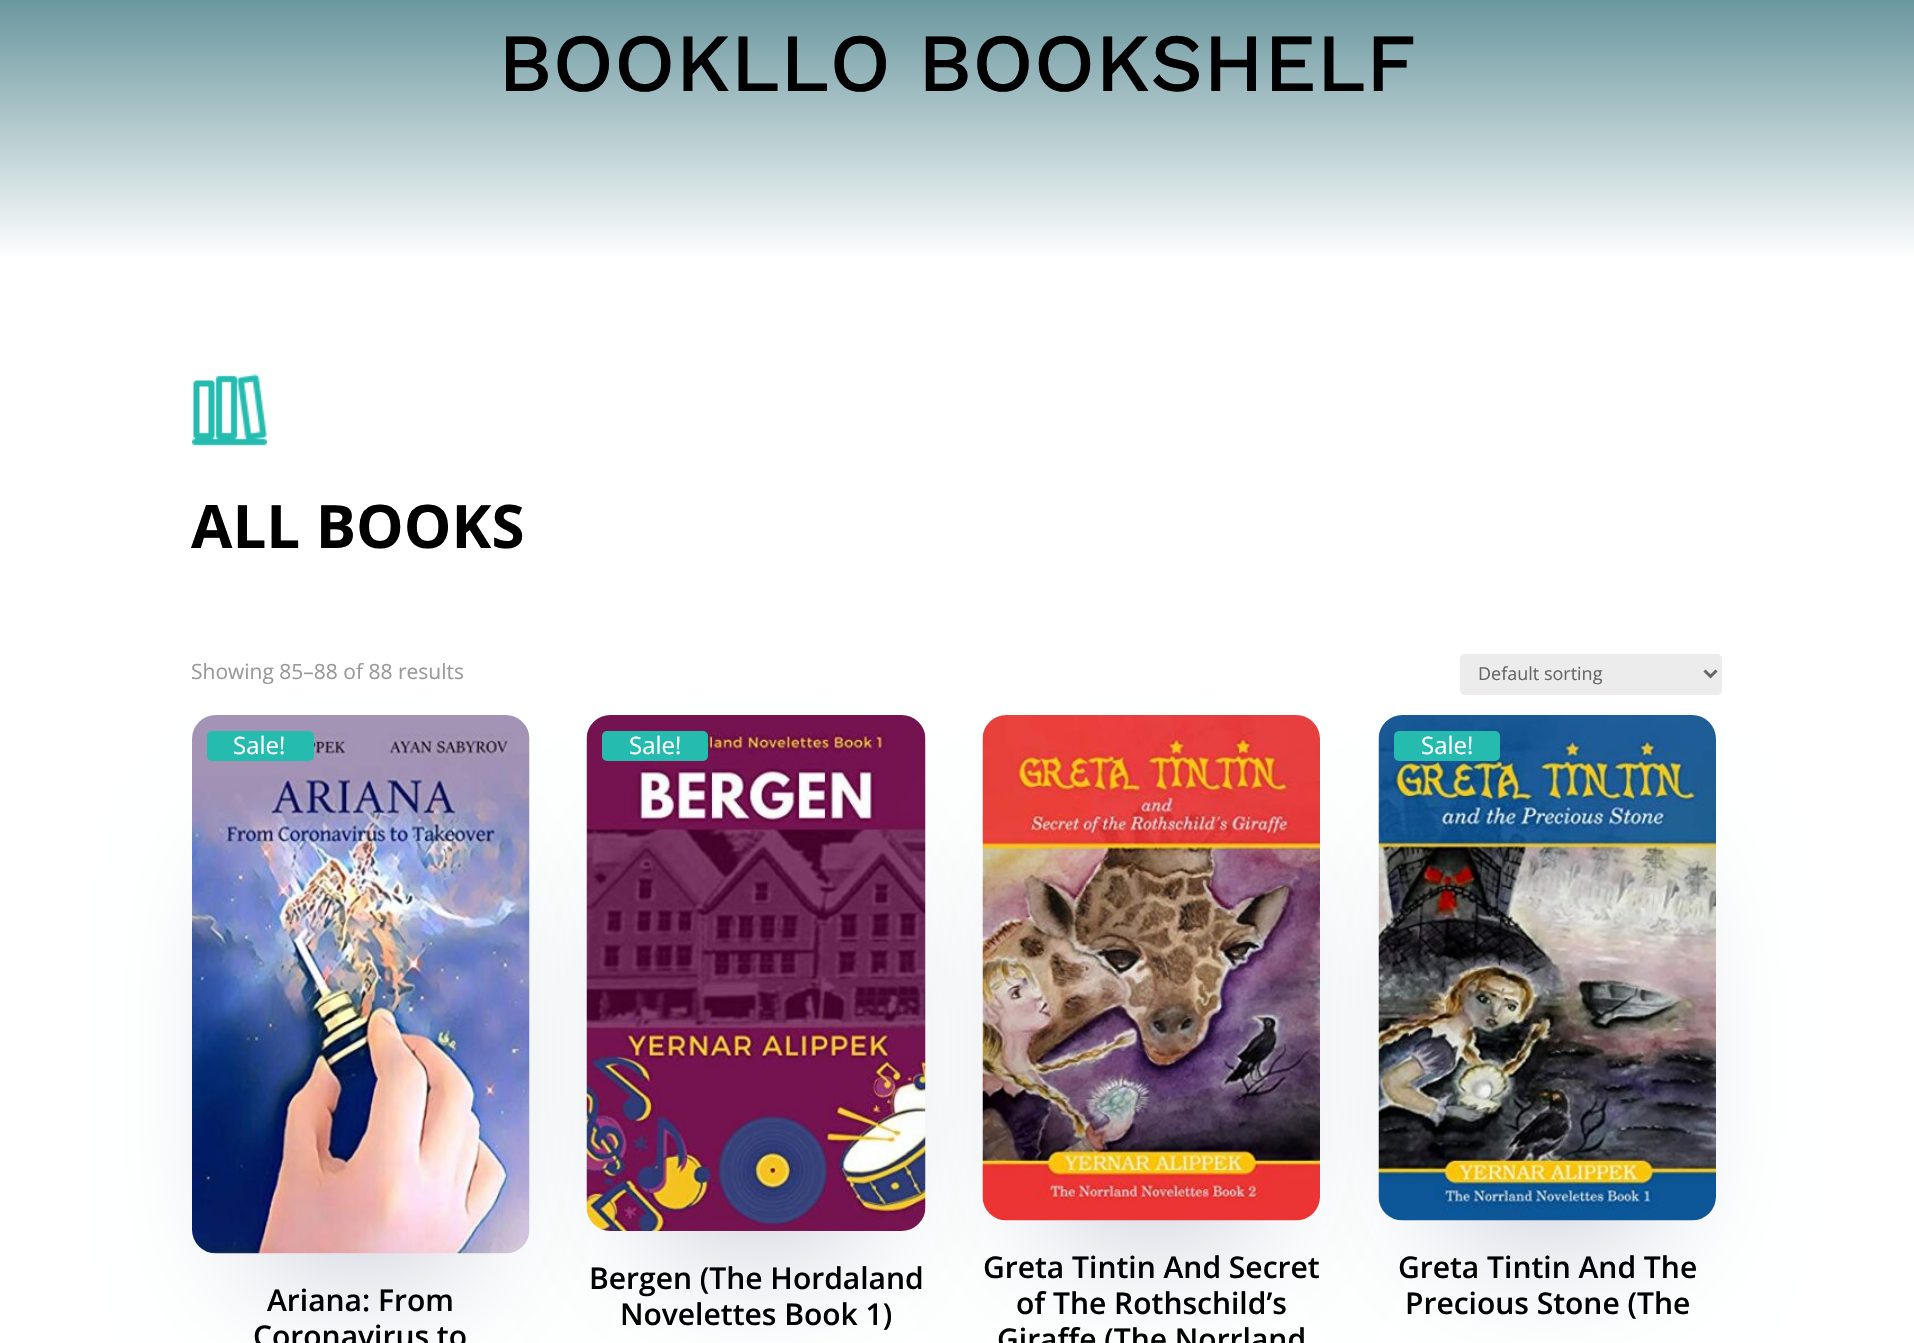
void draw(SkCanvas* canvas) {
  SkPaint paint;
  paint.setAntiAlias(true);
  auto face = [&](const char* family, int weight, float size, bool italic = false) {
    SkFontStyle style(weight, SkFontStyle::kNormal_Width,
      italic ? SkFontStyle::kItalic_Slant : SkFontStyle::kUpright_Slant);
    SkFont result(fontMgr->matchFamilyStyle(family, style), size);
    result.setSubpixel(true);
    return result;
  };
  auto paste = [&](const char* path, float x, float y, float w, float h) {
    auto image = SkImages::DeferredFromEncodedData(SkData::MakeFromFileName(path));
    canvas->drawImageRect(image, SkRect::MakeXYWH(x, y, w, h), SkSamplingOptions());
  };
  auto shape = [&](const char* data, bool evenOdd = false) {
    SkPath result = *SkParsePath::FromSVGString(data);
    if (evenOdd) result.setFillType(SkPathFillType::kEvenOdd);
    return result;
  };
  canvas->clear(0xffffffff);
  {
    const SkColor colors[] = {0xff1a5f6b, 0xffffffff};
    const float stops[] = {0, 1};
    const SkPoint ends[] = {{957, -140}, {957, 260}};
    paint.setShader(SkGradientShader::MakeLinear(ends, colors, stops, 2, SkTileMode::kClamp));
    paint.setAlpha(255);
  }
  canvas->drawRect(SkRect::MakeXYWH(0, 0, 1914, 256), paint);
  paste("img/1.png", 192, 374, 75, 72);
  paint.setShader(nullptr);
  paint.setColor(0xffececec);
  canvas->drawRoundRect(SkRect::MakeXYWH(1460, 654, 262, 41), 5, 5, paint);
  paint.setStroke(true);
  paint.setStrokeWidth(3);
  paint.setColor(0xff666666);
  canvas->drawPath(shape("M1704.5 670.5L1710.5 676.5L1716.5 670.5"), paint);
  paint.setStroke(false);
  paint.setColor(0x40000645);
  paint.setMaskFilter(SkMaskFilter::MakeBlur(kNormal_SkBlurStyle, 75));
  canvas->drawRect(SkRect::MakeXYWH(267, 873, 188, 389), paint);
  paint.setMaskFilter(nullptr);
  paste("img/2.png", 192, 715, 338, 539);
  paint.setColor(0xff25bcaf);
  canvas->drawRoundRect(SkRect::MakeXYWH(207, 731, 107, 30), 5, 5, paint);
  paint.setColor(0x40000645);
  paint.setMaskFilter(SkMaskFilter::MakeBlur(kNormal_SkBlurStyle, 75));
  canvas->drawRect(SkRect::MakeXYWH(662, 873, 189, 366), paint);
  paint.setMaskFilter(nullptr);
  paste("img/3.png", 586, 715, 340, 516);
  paint.setColor(0xff25bcaf);
  canvas->drawRoundRect(SkRect::MakeXYWH(602, 731, 106, 30), 5, 5, paint);
  paint.setColor(0x40000645);
  paint.setMaskFilter(SkMaskFilter::MakeBlur(kNormal_SkBlurStyle, 75));
  canvas->drawRect(SkRect::MakeXYWH(1058, 873, 187, 356), paint);
  paint.setMaskFilter(nullptr);
  paste("img/4.png", 982, 715, 338, 506);
  paint.setMaskFilter(SkMaskFilter::MakeBlur(kNormal_SkBlurStyle, 75));
  canvas->drawRect(SkRect::MakeXYWH(1454, 873, 187, 356), paint);
  paint.setMaskFilter(nullptr);
  paste("img/5.png", 1378, 715, 338, 506);
  paint.setColor(0xff25bcaf);
  canvas->drawRoundRect(SkRect::MakeXYWH(1394, 731, 106, 30), 5, 5, paint);
  auto f0 = face("Work Sans", 500, 82.5f);
  paint.setColor(0xff000000);
  canvas->drawString("BOOKLLO BOOKSHELF", 498, 91, f0, paint);
  auto f1 = face("Open Sans", 700, 60);
  canvas->drawString("ALL BOOKS", 191, 548, f1, paint);
  auto f2 = face("Open Sans", 400, 21);
  paint.setColor(0xff999999);
  canvas->drawString("Showing 85–88 of 88 results", 191, 679, f2, paint);
  auto f3 = face("Open Sans", 400, 18);
  paint.setColor(0xff666666);
  canvas->drawString("Default sorting", 1478, 680, f3, paint);
  auto f4 = face("Open Sans", 400, 24);
  paint.setColor(0xffffffff);
  canvas->drawString("Sale!", 233, 754, f4, paint);
  auto f5 = face("Open Sans", 600, 30);
  paint.setColor(0xff000000);
  canvas->drawString("Ariana: From", 267, 1311, f5, paint);
  canvas->drawString("Coronavirus to", 253, 1347, f5, paint);
  paint.setColor(0xffffffff);
  canvas->drawString("Sale!", 629, 754, f4, paint);
  paint.setColor(0xff000000);
  {
    const struct { const char* s; float x, y; } items[] = {
      {"Bergen (The Hordaland", 589, 1289},
      {"Novelettes Book 1)", 620, 1325},
      {"Greta Tintin And Secret", 983, 1278},
      {"of The Rothschild’s", 1016, 1314},
      {"Giraffe (The Norrland", 997, 1350},
    };
    for (auto [s, x, y] : items) {
      canvas->drawString(s, x, y, f5, paint);
    }
  }
  paint.setColor(0xffffffff);
  canvas->drawString("Sale!", 1421, 754, f4, paint);
  paint.setColor(0xff000000);
  canvas->drawString("Greta Tintin And The", 1398, 1278, f5, paint);
  canvas->drawString("Precious Stone (The", 1405, 1314, f5, paint);
}
